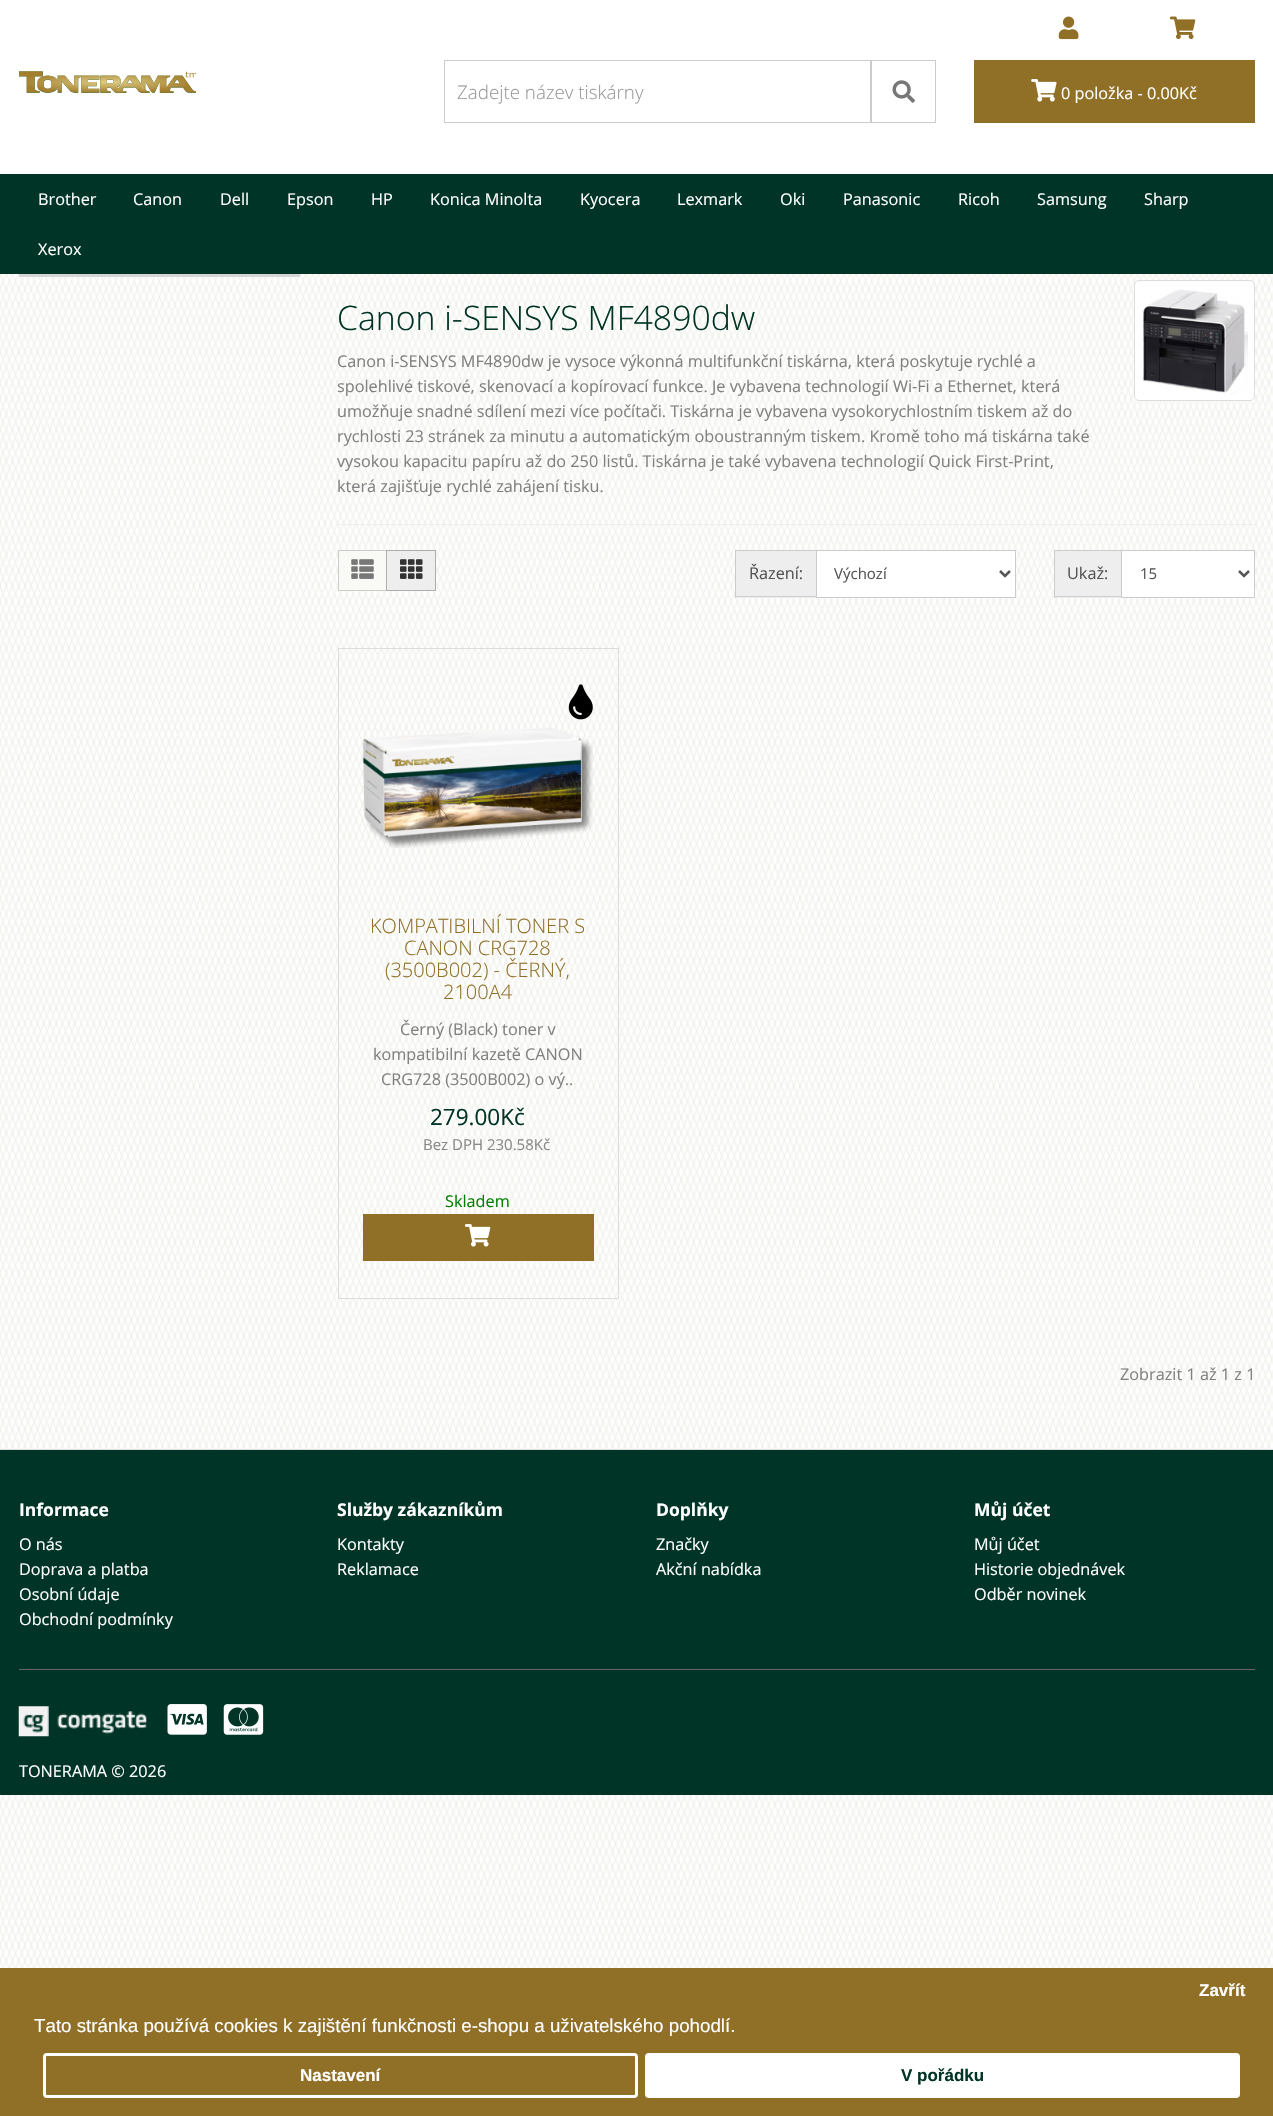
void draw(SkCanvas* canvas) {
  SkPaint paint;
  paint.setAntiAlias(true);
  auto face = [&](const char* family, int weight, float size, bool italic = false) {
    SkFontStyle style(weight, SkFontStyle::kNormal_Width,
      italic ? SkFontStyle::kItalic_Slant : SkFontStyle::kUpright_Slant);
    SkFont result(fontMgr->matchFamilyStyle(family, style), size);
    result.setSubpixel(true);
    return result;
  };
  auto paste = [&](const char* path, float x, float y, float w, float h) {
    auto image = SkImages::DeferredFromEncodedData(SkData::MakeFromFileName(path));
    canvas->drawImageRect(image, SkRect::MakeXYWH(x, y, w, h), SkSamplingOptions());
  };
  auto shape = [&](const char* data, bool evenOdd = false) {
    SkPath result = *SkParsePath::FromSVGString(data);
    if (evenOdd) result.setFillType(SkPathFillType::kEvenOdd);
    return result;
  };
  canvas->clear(0xffffffff);
  paste("img/1.png", 0, 274, 1273, 1694);
  paste("img/2.png", 1058, 16, 21, 24);
  paste("img/3.png", 1170, 16, 26, 23);
  paste("img/4.png", 19, 71, 177, 22);
  paint.setStroke(true);
  paint.setStrokeWidth(1);
  paint.setColor(0xffcccccc);
  canvas->drawRect(SkRect::MakeXYWH(444.5f, 60.5f, 426, 62), paint);
  canvas->drawRect(SkRect::MakeXYWH(871.5f, 60.5f, 64, 62), paint);
  paste("img/5.png", 892, 80, 23, 23);
  paint.setStroke(false);
  paint.setColor(0xff906f27);
  canvas->drawRect(SkRect::MakeXYWH(974, 60, 281, 63), paint);
  paste("img/6.png", 1031, 79, 26, 23);
  paint.setColor(0xff003426);
  canvas->drawRect(SkRect::MakeXYWH(0, 174, 1273, 100), paint);
  paint.setColor(0xffd5d5d5);
  canvas->drawRect(SkRect::MakeXYWH(19, 274, 281, 3), paint);
  paint.setColor(0xffffffff);
  canvas->drawRoundRect(SkRect::MakeXYWH(1134.5f, 280.5f, 120, 120), 4.5f, 4.5f, paint);
  paint.setStroke(true);
  paint.setColor(0xffdddddd);
  canvas->drawRoundRect(SkRect::MakeXYWH(1134.5f, 280.5f, 120, 120), 4.5f, 4.5f, paint);
  paste("img/7.png", 1142, 289, 106, 106);
  paint.setStroke(false);
  paint.setColor(0xffeeeeee);
  canvas->drawRect(SkRect::MakeXYWH(338, 524, 917, 1), paint);
  paint.setColor(0xfff9f9f6);
  canvas->drawRect(SkRect::MakeXYWH(339, 551, 47, 39), paint);
  paint.setStroke(true);
  paint.setColor(0xffcccccc);
  canvas->drawRect(SkRect::MakeXYWH(338.5f, 550.5f, 49, 40), paint);
  paste("img/8.png", 351, 559, 23, 20);
  paint.setStroke(false);
  paint.setColor(0xffeeeeee);
  canvas->drawRect(SkRect::MakeXYWH(386.5f, 550.5f, 49, 40), paint);
  paint.setStroke(true);
  paint.setColor(0xffadadad);
  canvas->drawRect(SkRect::MakeXYWH(386.5f, 550.5f, 49, 40), paint);
  paste("img/9.png", 400, 559, 23, 20);
  paint.setStroke(false);
  {
    const struct { float x, y, w, h; SkColor color; } items[] = {
      {736, 551, 80, 47, 0xffeeeeee},
      {735, 550, 81, 1, 0xffcccccc},
      {735, 596, 81, 1, 0xffcccccc},
      {735, 550, 1, 48, 0xffcccccc},
    };
    for (auto [x, y, w, h, color] : items) {
      paint.setColor(color);
      canvas->drawRect(SkRect::MakeXYWH(x, y, w, h), paint);
    }
  }
  paint.setColor(0xffffffff);
  canvas->drawRect(SkRect::MakeXYWH(816.5f, 550.5f, 199, 47), paint);
  paint.setStroke(true);
  paint.setColor(0xffcccccc);
  canvas->drawRect(SkRect::MakeXYWH(816.5f, 550.5f, 199, 47), paint);
  paint.setStrokeWidth(2.5f);
  paint.setColor(0xff555555);
  canvas->drawPath(shape("M1000 571L1005 576L1010 571"), paint);
  paint.setStroke(false);
  {
    const struct { float x, y, w, h; SkColor color; } items[] = {
      {1055, 551, 66, 47, 0xffeeeeee},
      {1054, 550, 67, 1, 0xffcccccc},
      {1054, 596, 67, 1, 0xffcccccc},
      {1054, 550, 1, 48, 0xffcccccc},
    };
    for (auto [x, y, w, h, color] : items) {
      paint.setColor(color);
      canvas->drawRect(SkRect::MakeXYWH(x, y, w, h), paint);
    }
  }
  paint.setColor(0xffffffff);
  canvas->drawRect(SkRect::MakeXYWH(1121.5f, 550.5f, 133, 47), paint);
  paint.setStroke(true);
  paint.setStrokeWidth(1);
  paint.setColor(0xffcccccc);
  canvas->drawRect(SkRect::MakeXYWH(1121.5f, 550.5f, 133, 47), paint);
  paint.setStrokeWidth(2.5f);
  paint.setColor(0xff555555);
  canvas->drawPath(shape("M1239 571L1244 576L1249 571"), paint);
  paint.setStrokeWidth(1);
  paint.setColor(0xffdddddd);
  canvas->drawRect(SkRect::MakeXYWH(338.5f, 648.5f, 280, 650), paint);
  paste("img/10.png", 568, 684, 25, 36);
  paste("img/11.png", 362, 727, 231, 121);
  paint.setStroke(false);
  paint.setColor(0xff906f27);
  canvas->drawRect(SkRect::MakeXYWH(363, 1214, 231, 47), paint);
  paste("img/12.png", 465, 1224, 26, 23);
  {
    const struct { float x, y, w, h; SkColor color; } items[] = {
      {0, 1450, 1273, 345, 0xff003426},
      {0, 1449, 1273, 1, 0xffdddddd},
      {19, 1669, 1236, 1, 0xff666666},
    };
    for (auto [x, y, w, h, color] : items) {
      paint.setColor(color);
      canvas->drawRect(SkRect::MakeXYWH(x, y, w, h), paint);
    }
  }
  paste("img/13.png", 18, 1706, 129, 31);
  paste("img/14.png", 167, 1704, 40, 31);
  paste("img/15.png", 223, 1704, 41, 31);
  paint.setColor(0xff906f27);
  canvas->drawRect(SkRect::MakeXYWH(0, 1968, 1273, 148), paint);
  paint.setStroke(true);
  paint.setStrokeWidth(3);
  paint.setColor(0xffffffff);
  canvas->drawRoundRect(SkRect::MakeXYWH(44.5f, 2054.5f, 592, 42), 2.5f, 2.5f, paint);
  paint.setStroke(false);
  canvas->drawRoundRect(SkRect::MakeXYWH(645, 2053, 595, 45), 4, 4, paint);
  auto f0 = face("Open Sans", 300, 18.75f);
  paint.setColor(0xff999999);
  canvas->drawString("Zadejte název tiskárny", 457, 99, f0, paint);
  auto f1 = face("Open Sans", 400, 16.25f);
  paint.setColor(0xffffffff);
  {
    const struct { const char* s; float x, y; } items[] = {
      {"0 položka - 0.00Kč", 1061, 99},
      {"Brother", 38, 205},
      {"Canon", 133, 205},
      {"Dell", 220, 205},
      {"Epson", 287, 205},
      {"HP", 371, 205},
      {"Konica Minolta", 430, 205},
      {"Kyocera", 580, 205},
      {"Lexmark", 677, 205},
      {"Oki", 780, 205},
      {"Panasonic", 843, 205},
      {"Ricoh", 958, 205},
      {"Samsung", 1037, 205},
      {"Sharp", 1144, 205},
      {"Xerox", 38, 255},
    };
    for (auto [s, x, y] : items) {
      canvas->drawString(s, x, y, f1, paint);
    }
  }
  auto f2 = face("Open Sans", 300, 33.75f);
  paint.setColor(0xff003426);
  canvas->drawString("Canon i-SENSYS MF4890dw", 337, 330, f2, paint);
  paint.setColor(0xff818181);
  {
    const struct { const char* s; float x, y; } items[] = {
      {"Canon i-SENSYS MF4890dw je vysoce výkonná multifunkční tiskárna, která poskytuje rychlé a", 337, 367},
      {"spolehlivé tiskové, skenovací a kopírovací funkce. Je vybavena technologií Wi-Fi a Ethernet, která", 337, 392},
      {"umožňuje snadné sdílení mezi více počítači. Tiskárna je vybavena vysokorychlostním tiskem až do", 337, 417},
      {"rychlosti 23 stránek za minutu a automatickým oboustranným tiskem. Kromě toho má tiskárna také", 337, 442},
      {"vysokou kapacitu papíru až do 250 listů. Tiskárna je také vybavena technologií Quick First-Print,", 337, 467},
      {"která zajišťuje rychlé zahájení tisku.", 337, 492},
    };
    for (auto [s, x, y] : items) {
      canvas->drawString(s, x, y, f1, paint);
    }
  }
  paint.setColor(0xff555555);
  canvas->drawString("Řazení:", 749, 579, f1, paint);
  auto f3 = face("Open Sans", 400, 15);
  canvas->drawString("Výchozí", 834, 579, f3, paint);
  canvas->drawString("Ukaž:", 1067, 579, f1, paint);
  canvas->drawString("15", 1140, 579, f3, paint);
  auto f4 = face("Open Sans", 300, 20);
  paint.setColor(0xff906f27);
  {
    const struct { const char* s; float x, y; } items[] = {
      {"KOMPATIBILNÍ TONER S", 370, 933},
      {"CANON CRG728", 404, 955},
      {"(3500B002) - ČERNÝ,", 385, 977},
      {"2100A4", 443, 999},
    };
    for (auto [s, x, y] : items) {
      canvas->drawString(s, x, y, f4, paint);
    }
  }
  paint.setColor(0xff818181);
  {
    const struct { const char* s; float x, y; } items[] = {
      {"Černý (Black) toner v", 400, 1035},
      {"kompatibilní kazetě CANON", 373, 1060},
      {"CRG728 (3500B002) o vý..", 381, 1085},
    };
    for (auto [s, x, y] : items) {
      canvas->drawString(s, x, y, f1, paint);
    }
  }
  auto f5 = face("Open Sans", 400, 22.5f);
  paint.setColor(0xff003426);
  canvas->drawString("279.00Kč", 430, 1125, f5, paint);
  paint.setColor(0xff888888);
  canvas->drawString("Bez DPH 230.58Kč", 423, 1150, f3, paint);
  paint.setColor(0xff008000);
  canvas->drawString("Skladem", 445, 1207, f1, paint);
  paint.setColor(0xff818181);
  canvas->drawString("Zobrazit 1 až 1 z 1", 1120, 1380, f1, paint);
  auto f6 = face("Open Sans", 700, 17.5f);
  paint.setColor(0xffffffff);
  canvas->drawString("Informace", 19, 1516, f6, paint);
  {
    const struct { const char* s; float x, y; } items[] = {
      {"O nás", 19, 1550},
      {"Doprava a platba", 19, 1575},
      {"Osobní údaje", 19, 1600},
      {"Obchodní podmínky", 19, 1625},
    };
    for (auto [s, x, y] : items) {
      canvas->drawString(s, x, y, f1, paint);
    }
  }
  canvas->drawString("Služby zákazníkům", 337, 1516, f6, paint);
  canvas->drawString("Kontakty", 337, 1550, f1, paint);
  canvas->drawString("Reklamace", 337, 1575, f1, paint);
  canvas->drawString("Doplňky", 656, 1516, f6, paint);
  canvas->drawString("Značky", 656, 1550, f1, paint);
  canvas->drawString("Akční nabídka", 656, 1575, f1, paint);
  canvas->drawString("Můj účet", 974, 1516, f6, paint);
  {
    const struct { const char* s; float x, y; } items[] = {
      {"Můj účet", 974, 1550},
      {"Historie objednávek", 974, 1575},
      {"Odběr novinek", 974, 1600},
      {"TONERAMA © 2026", 19, 1777},
    };
    for (auto [s, x, y] : items) {
      canvas->drawString(s, x, y, f1, paint);
    }
  }
  auto f7 = face("Liberation Sans", 700, 17);
  canvas->drawString("Zavřít", 1199, 1996, f7, paint);
  canvas->drawString("Nastavení", 300, 2081, f7, paint);
  paint.setColor(0xff003426);
  canvas->drawString("V pořádku", 901, 2081, f7, paint);
  auto f8 = face("Liberation Sans", 400, 18.75f);
  paint.setColor(0xffffffff);
  canvas->drawString("Tato stránka používá cookies k zajištění funkčnosti e-shopu a uživatelského pohodlí.", 34, 2032, f8, paint);
}
